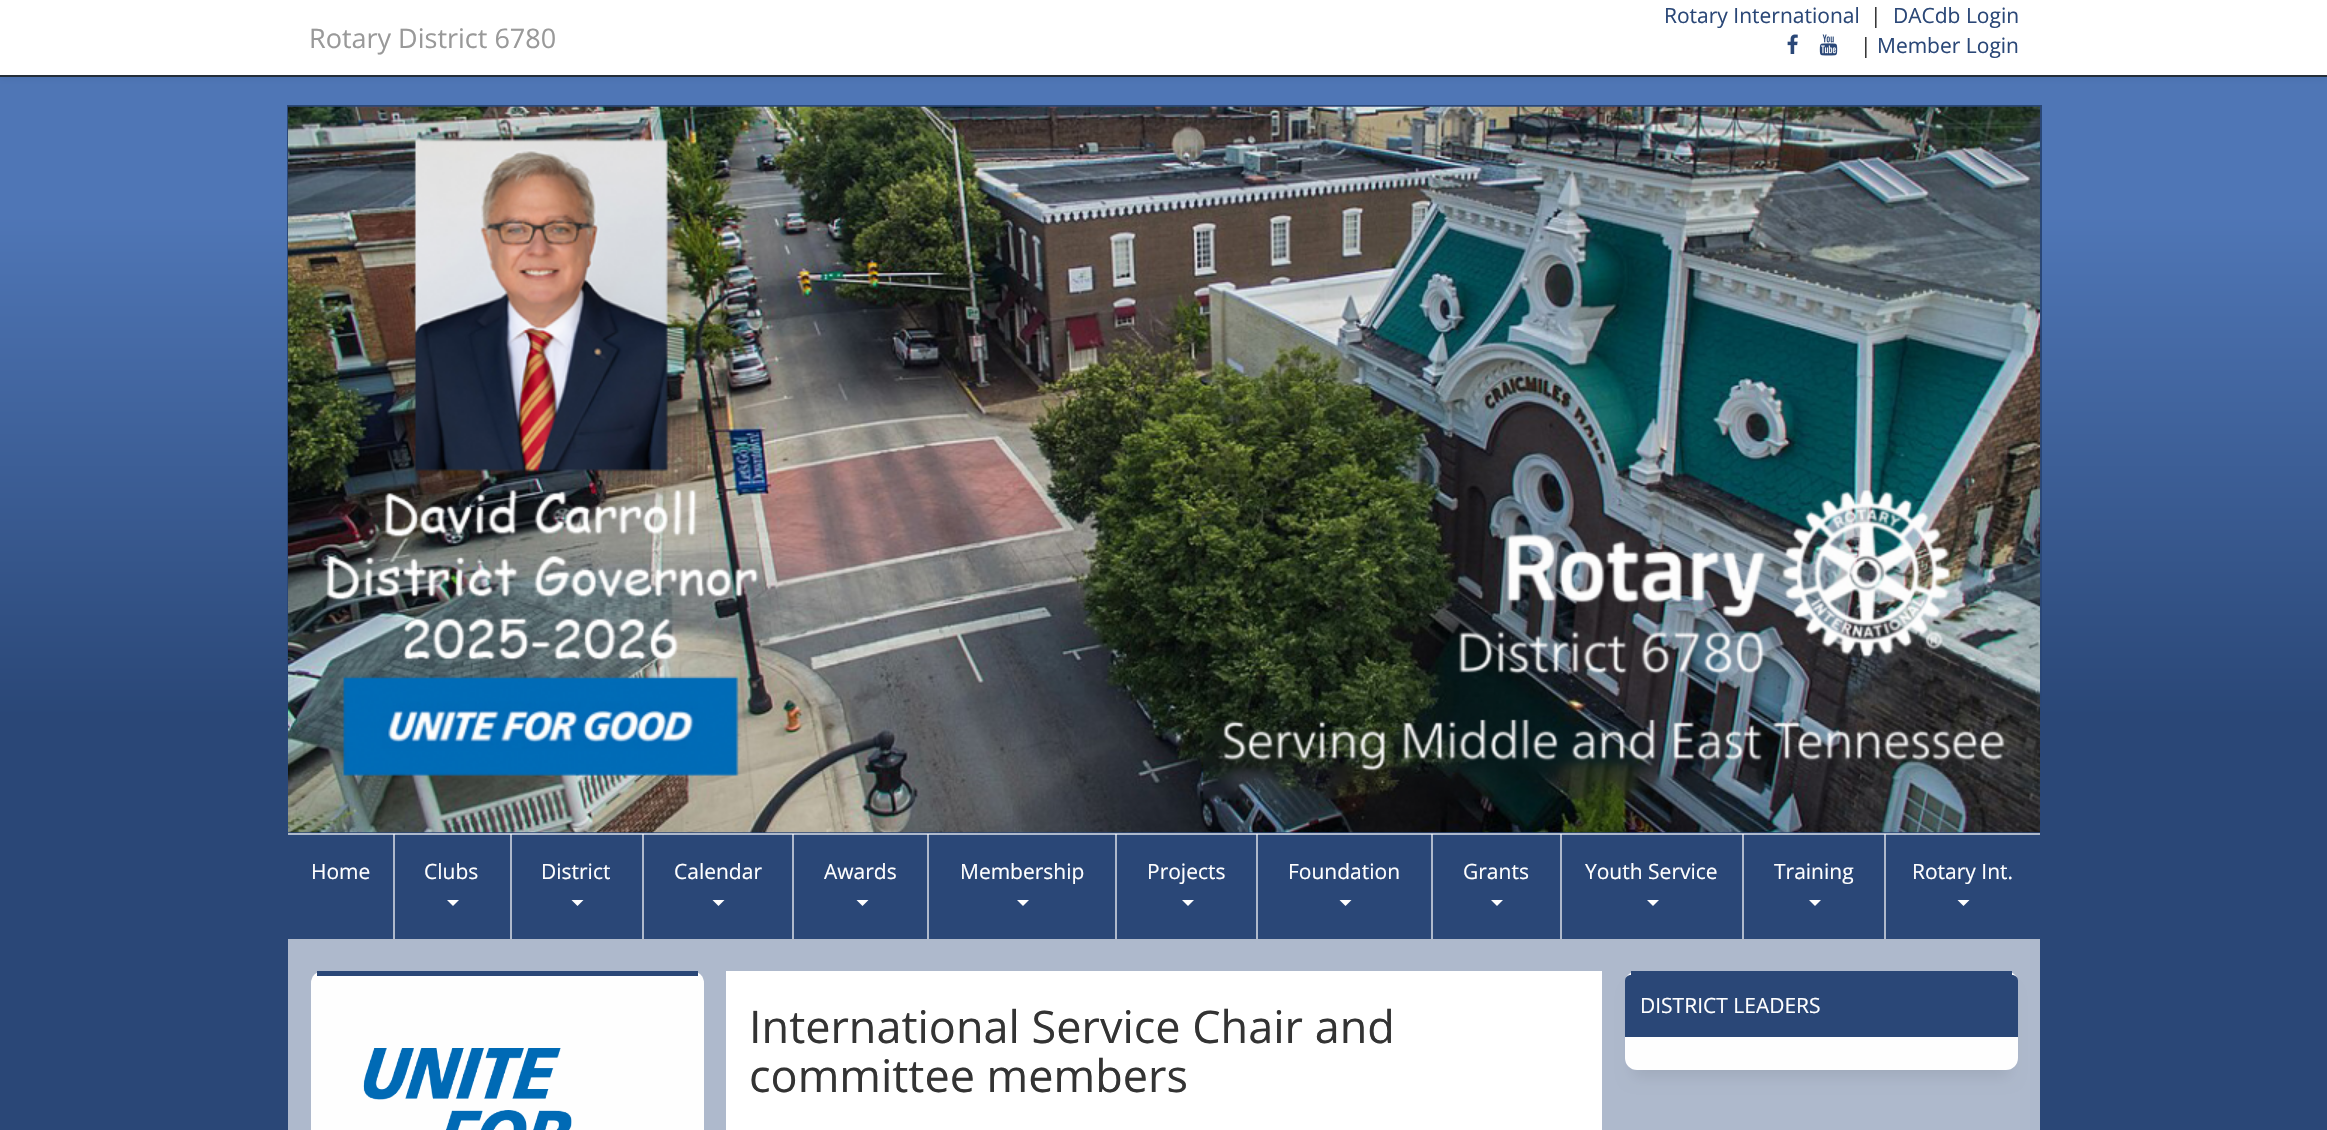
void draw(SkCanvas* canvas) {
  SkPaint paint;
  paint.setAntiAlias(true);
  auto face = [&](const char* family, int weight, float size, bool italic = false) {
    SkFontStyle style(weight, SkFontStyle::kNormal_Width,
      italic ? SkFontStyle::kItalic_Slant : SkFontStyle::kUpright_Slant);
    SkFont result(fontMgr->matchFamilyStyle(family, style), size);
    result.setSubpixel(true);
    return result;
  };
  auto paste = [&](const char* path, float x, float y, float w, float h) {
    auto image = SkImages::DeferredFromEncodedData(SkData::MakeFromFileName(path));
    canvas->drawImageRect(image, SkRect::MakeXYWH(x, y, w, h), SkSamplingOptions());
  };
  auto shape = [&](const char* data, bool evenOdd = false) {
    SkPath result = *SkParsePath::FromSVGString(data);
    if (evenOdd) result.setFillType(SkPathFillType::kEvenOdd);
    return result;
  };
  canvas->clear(0xffffffff);
  {
    const SkColor colors[] = {0xff4f76b6, 0xff2a4777};
    const float stops[] = {0.06f, 0.2f};
    const SkPoint ends[] = {{1164, 0}, {1164, 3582}};
    paint.setShader(SkGradientShader::MakeLinear(ends, colors, stops, 2, SkTileMode::kClamp));
    paint.setAlpha(255);
  }
  canvas->drawRect(SkRect::MakeXYWH(0, 77, 2327, 1053), paint);
  {
    const SkColor colors[] = {0xffbccbe3, 0xffaeb9cb};
    const float stops[] = {0.06f, 0.2f};
    const SkPoint ends[] = {{1164, 0}, {1164, 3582}};
    paint.setShader(SkGradientShader::MakeLinear(ends, colors, stops, 2, SkTileMode::kClamp));
    paint.setAlpha(255);
  }
  canvas->drawRect(SkRect::MakeXYWH(1884, 834, 2, 105), paint);
  canvas->drawRect(SkRect::MakeXYWH(1742, 834, 2, 105), paint);
  canvas->drawRect(SkRect::MakeXYWH(1560, 834, 2, 105), paint);
  canvas->drawRect(SkRect::MakeXYWH(1431, 834, 2, 105), paint);
  canvas->drawRect(SkRect::MakeXYWH(1256, 834, 2, 105), paint);
  canvas->drawRect(SkRect::MakeXYWH(1115, 834, 2, 105), paint);
  canvas->drawRect(SkRect::MakeXYWH(927, 834, 2, 105), paint);
  canvas->drawRect(SkRect::MakeXYWH(792, 834, 2, 105), paint);
  canvas->drawRect(SkRect::MakeXYWH(642, 834, 2, 105), paint);
  canvas->drawRect(SkRect::MakeXYWH(510, 834, 2, 105), paint);
  canvas->drawRect(SkRect::MakeXYWH(393, 834, 2, 105), paint);
  paint.setShader(nullptr);
  paint.setColor(0x12000000);
  paint.setMaskFilter(SkMaskFilter::MakeBlur(kNormal_SkBlurStyle, 4));
  canvas->drawRect(SkRect::MakeXYWH(0, 2, 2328, 76), paint);
  paint.setMaskFilter(nullptr);
  paint.setColor(0xffffffff);
  canvas->drawRect(SkRect::MakeXYWH(0, 0, 2327, 75), paint);
  paint.setColor(0xff242e38);
  canvas->drawRect(SkRect::MakeXYWH(0, 75, 2327, 2), paint);
  paste("img/1.png", 1787, 34, 11, 20);
  paste("img/2.png", 1819, 34, 19, 22);
  paint.setStroke(true);
  paint.setStrokeWidth(2);
  paint.setColor(0xff2a4777);
  canvas->drawRect(SkRect::MakeXYWH(288, 106, 1753, 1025), paint);
  paste("img/3.png", 288, 106, 1752, 727);
  paint.setStroke(false);
  {
    const struct { float x, y, w, h; SkColor color; } items[] = {
      {288, 833, 1752, 2, 0xffaeb9cb},
      {1884, 834, 2, 1, 0xffe0e4eb},
      {1742, 834, 2, 1, 0xffe0e4eb},
      {1560, 834, 2, 1, 0xffe0e4eb},
      {1431, 834, 2, 1, 0xffe0e4eb},
      {1256, 834, 2, 1, 0xffe0e4eb},
      {1115, 834, 2, 1, 0xffe0e4eb},
      {927, 834, 2, 1, 0xffe0e4eb},
      {792, 834, 2, 1, 0xffe0e4eb},
      {642, 834, 2, 1, 0xffe0e4eb},
      {510, 834, 2, 1, 0xffe0e4eb},
      {393, 834, 2, 1, 0xffe0e4eb},
      {288, 939, 1752, 2, 0xffaeb9cb},
    };
    for (auto [x, y, w, h, color] : items) {
      paint.setColor(color);
      canvas->drawRect(SkRect::MakeXYWH(x, y, w, h), paint);
    }
  }
  paint.setColor(0xffffffff);
  canvas->drawPath(shape("M447 900H459L453 906Z"), paint);
  canvas->drawPath(shape("M571.5 900H583.5L577.5 906Z"), paint);
  canvas->drawPath(shape("M712.5 900H724.5L718.5 906Z"), paint);
  canvas->drawPath(shape("M856.5 900H868.5L862.5 906Z"), paint);
  canvas->drawPath(shape("M1017 900H1029L1023 906Z"), paint);
  canvas->drawPath(shape("M1182 900H1194L1188 906Z"), paint);
  canvas->drawPath(shape("M1339.5 900H1351.5L1345.5 906Z"), paint);
  canvas->drawPath(shape("M1491 900H1503L1497 906Z"), paint);
  canvas->drawPath(shape("M1647 900H1659L1653 906Z"), paint);
  canvas->drawPath(shape("M1809 900H1821L1815 906Z"), paint);
  canvas->drawPath(shape("M1957.5 900H1969.5L1963.5 906Z"), paint);
  paint.setColor(0xffaeb9cc);
  canvas->drawRect(SkRect::MakeXYWH(288, 941, 1752, 189), paint);
  paint.setColor(0xfffefefe);
  canvas->drawRoundRect(SkRect::MakeXYWH(311, 971, 393, 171), 12, 12, paint);
  paint.setColor(0xff2a4777);
  canvas->drawRect(SkRect::MakeXYWH(317, 971, 381, 5), paint);
  paste("img/4.png", 363, 1048, 209, 82);
  paint.setColor(0x14000000);
  paint.setMaskFilter(SkMaskFilter::MakeBlur(kNormal_SkBlurStyle, 7.5f));
  canvas->drawRoundRect(SkRect::MakeXYWH(1632, 993, 378, 84), 5, 5, paint);
  paint.setMaskFilter(nullptr);
  paint.setColor(0xfffefefe);
  canvas->drawRoundRect(SkRect::MakeXYWH(1625, 971, 393, 99), 12, 12, paint);
  paint.setColor(0xff2a4777);
  canvas->drawRect(SkRect::MakeXYWH(1631, 971, 381, 4), paint);
  canvas->drawPath(shape("M1631 975H2012C2015.5 975 2018 977.5 2018 981V1037H1625V981C1625 977.5 1627.5 975 1631 975Z"), paint);
  paint.setColor(0xffffffff);
  canvas->drawRect(SkRect::MakeXYWH(726, 971, 876, 159), paint);
  auto f0 = face("Open Sans", 400, 21);
  paint.setColor(0xff2a4777);
  canvas->drawString("Rotary International", 1664, 23, f0, paint);
  paint.setColor(0xff333333);
  canvas->drawString("|", 1870, 23, f0, paint);
  paint.setColor(0xff2a4777);
  canvas->drawString("DACdb Login", 1893, 23, f0, paint);
  auto f1 = face("Open Sans", 400, 27);
  paint.setColor(0xff999999);
  canvas->drawString("Rotary District 6780", 309, 48, f1, paint);
  paint.setColor(0xff333333);
  canvas->drawString("|", 1860, 53, f0, paint);
  paint.setColor(0xff2a4777);
  canvas->drawString("Member Login", 1877, 53, f0, paint);
  paint.setColor(0xffffffff);
  {
    const struct { const char* s; float x, y; } items[] = {
      {"Home", 311, 879},
      {"Clubs", 424, 879},
      {"District", 541, 879},
      {"Calendar", 674, 879},
      {"Awards", 824, 879},
      {"Membership", 960, 879},
      {"Projects", 1147, 879},
      {"Foundation", 1288, 879},
      {"Grants", 1463, 879},
      {"Youth Service", 1585, 879},
      {"Training", 1774, 879},
      {"Rotary Int.", 1912, 879},
      {"DISTRICT LEADERS", 1640, 1013},
    };
    for (auto [s, x, y] : items) {
      canvas->drawString(s, x, y, f0, paint);
    }
  }
  auto f2 = face("Open Sans", 400, 45);
  paint.setColor(0xff333333);
  canvas->drawString("International Service Chair and", 749, 1043, f2, paint);
  canvas->drawString("committee members", 749, 1092, f2, paint);
}
